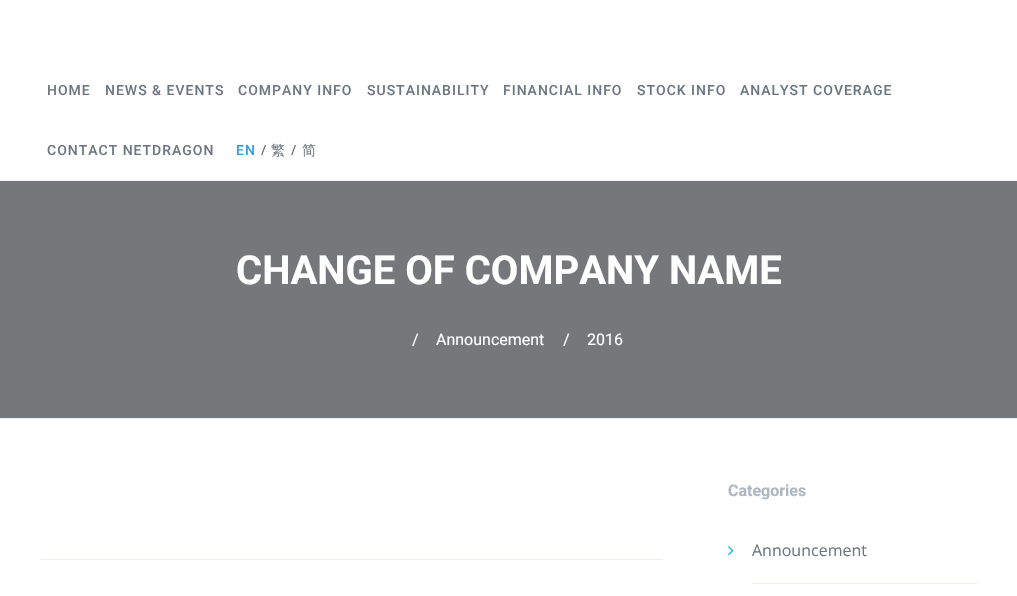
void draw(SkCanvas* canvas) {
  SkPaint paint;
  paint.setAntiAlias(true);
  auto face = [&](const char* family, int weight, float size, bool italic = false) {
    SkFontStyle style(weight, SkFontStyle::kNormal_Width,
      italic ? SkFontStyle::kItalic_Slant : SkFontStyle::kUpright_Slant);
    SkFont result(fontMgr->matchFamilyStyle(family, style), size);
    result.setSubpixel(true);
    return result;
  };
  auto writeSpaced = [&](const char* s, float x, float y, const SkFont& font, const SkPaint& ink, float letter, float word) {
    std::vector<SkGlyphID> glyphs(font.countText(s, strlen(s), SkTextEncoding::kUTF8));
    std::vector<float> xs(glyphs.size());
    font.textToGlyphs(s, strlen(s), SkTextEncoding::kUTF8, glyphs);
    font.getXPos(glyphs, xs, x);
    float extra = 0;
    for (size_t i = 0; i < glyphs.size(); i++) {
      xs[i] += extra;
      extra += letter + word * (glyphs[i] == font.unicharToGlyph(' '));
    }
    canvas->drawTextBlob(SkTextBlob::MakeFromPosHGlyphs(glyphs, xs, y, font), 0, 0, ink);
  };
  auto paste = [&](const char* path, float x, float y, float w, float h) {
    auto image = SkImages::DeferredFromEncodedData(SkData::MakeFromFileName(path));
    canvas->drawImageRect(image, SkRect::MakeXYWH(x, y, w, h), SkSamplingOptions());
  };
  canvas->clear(0xffffffff);
  {
    const struct { float x, y, w, h; SkColor color; } items[] = {
      {0, 180, 1017, 1, 0xfff5f5f5},
      {0, 418, 1017, 1, 0xffecf0f1},
      {0, 181, 1017, 237, 0xff76777a},
    };
    for (auto [x, y, w, h, color] : items) {
      paint.setColor(color);
      canvas->drawRect(SkRect::MakeXYWH(x, y, w, h), paint);
    }
  }
  paste("img/1.png", 728, 546, 6, 10);
  paint.setColor(0xffedf0f7);
  canvas->drawRect(SkRect::MakeXYWH(752, 583, 225, 1), paint);
  canvas->drawRect(SkRect::MakeXYWH(40, 559, 623, 1), paint);
  auto f0 = face("Roboto", 500, 14);
  paint.setColor(0xff6d7783);
  {
    const struct { const char* s; float x, y; } items[] = {
      {"HOME", 47, 95},
      {"NEWS & EVENTS", 105, 95},
      {"COMPANY INFO", 238, 95},
      {"SUSTAINABILITY", 367, 95},
      {"FINANCIAL INFO", 503, 95},
      {"STOCK INFO", 637, 95},
      {"ANALYST COVERAGE", 740, 95},
      {"CONTACT NETDRAGON", 47, 155},
    };
    for (auto [s, x, y] : items) {
      writeSpaced(s, x, y, f0, paint, 1, 0);
    }
  }
  paint.setColor(0xff339ee5);
  writeSpaced("EN", 236, 155, f0, paint, 1, 0);
  auto f1 = face("Open Sans", 400, 14);
  paint.setColor(0xff666666);
  canvas->drawString("/", 261, 155, f1, paint);
  auto f2 = face("WenQuanYi Zen Hei", 500, 14);
  paint.setColor(0xff6d7783);
  writeSpaced("繁", 271, 155, f2, paint, 1, 0);
  paint.setColor(0xff666666);
  canvas->drawString("/", 291, 155, f1, paint);
  paint.setColor(0xff6d7783);
  writeSpaced("简", 302, 155, f2, paint, 1, 0);
  auto f3 = face("Roboto", 700, 40);
  paint.setColor(0xffffffff);
  canvas->drawString("CHANGE OF COMPANY NAME", 236, 284, f3, paint);
  auto f4 = face("Roboto", 400, 16);
  {
    const struct { const char* s; float x, y; } items[] = {
      {"/", 412, 345},
      {"Announcement", 436, 345},
      {"/", 563, 345},
      {"2016", 587, 345},
    };
    for (auto [s, x, y] : items) {
      canvas->drawString(s, x, y, f4, paint);
    }
  }
  auto f5 = face("Roboto", 700, 16);
  paint.setColor(0xffaeb7c1);
  canvas->drawString("Categories", 728, 496, f5, paint);
  auto f6 = face("Open Sans", 400, 16);
  paint.setColor(0xff6d7783);
  canvas->drawString("Announcement", 752, 556, f6, paint);
}
